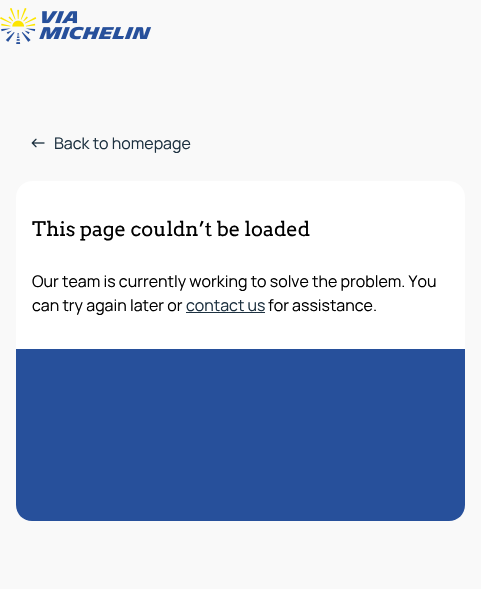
void draw(SkCanvas* canvas) {
  SkPaint paint;
  paint.setAntiAlias(true);
  auto face = [&](const char* family, int weight, float size, bool italic = false) {
    SkFontStyle style(weight, SkFontStyle::kNormal_Width,
      italic ? SkFontStyle::kItalic_Slant : SkFontStyle::kUpright_Slant);
    SkFont result(fontMgr->matchFamilyStyle(family, style), size);
    result.setSubpixel(true);
    return result;
  };
  auto paste = [&](const char* path, float x, float y, float w, float h) {
    auto image = SkImages::DeferredFromEncodedData(SkData::MakeFromFileName(path));
    canvas->drawImageRect(image, SkRect::MakeXYWH(x, y, w, h), SkSamplingOptions());
  };
  auto shape = [&](const char* data, bool evenOdd = false) {
    SkPath result = *SkParsePath::FromSVGString(data);
    if (evenOdd) result.setFillType(SkPathFillType::kEvenOdd);
    return result;
  };
  canvas->clear(0xfff9f9f9);
  paste("img/1.png", 0, 8, 152, 36);
  paste("img/2.png", 31, 138, 14, 10);
  paint.setColor(0xffffffff);
  canvas->drawRoundRect(SkRect::MakeXYWH(16, 181, 449, 340), 16, 16, paint);
  paint.setColor(0xff1d3140);
  canvas->drawRect(SkRect::MakeXYWH(186, 312, 79, 1), paint);
  paint.setColor(0xff27509b);
  canvas->drawPath(shape("M16 349H465V505C465 514 458 521 449 521H32C23 521 16 514 16 505Z"), paint);
  auto f0 = face("Manrope", 200, 16);
  paint.setColor(0xff1d3140);
  canvas->drawString("Back to homepage", 54, 149, f0, paint);
  auto f1 = face("Arvo", 400, 20);
  paint.setColor(0xff000000);
  canvas->drawString("This page couldn’t be loaded", 32, 236, f1, paint);
  canvas->drawString("Our team is currently working to solve the problem. You", 32, 287, f0, paint);
  canvas->drawString("can try again later or", 32, 311, f0, paint);
  paint.setColor(0xff1d3140);
  canvas->drawString("contact us", 186, 311, f0, paint);
  paint.setColor(0xff000000);
  canvas->drawString("for assistance.", 268, 311, f0, paint);
}
